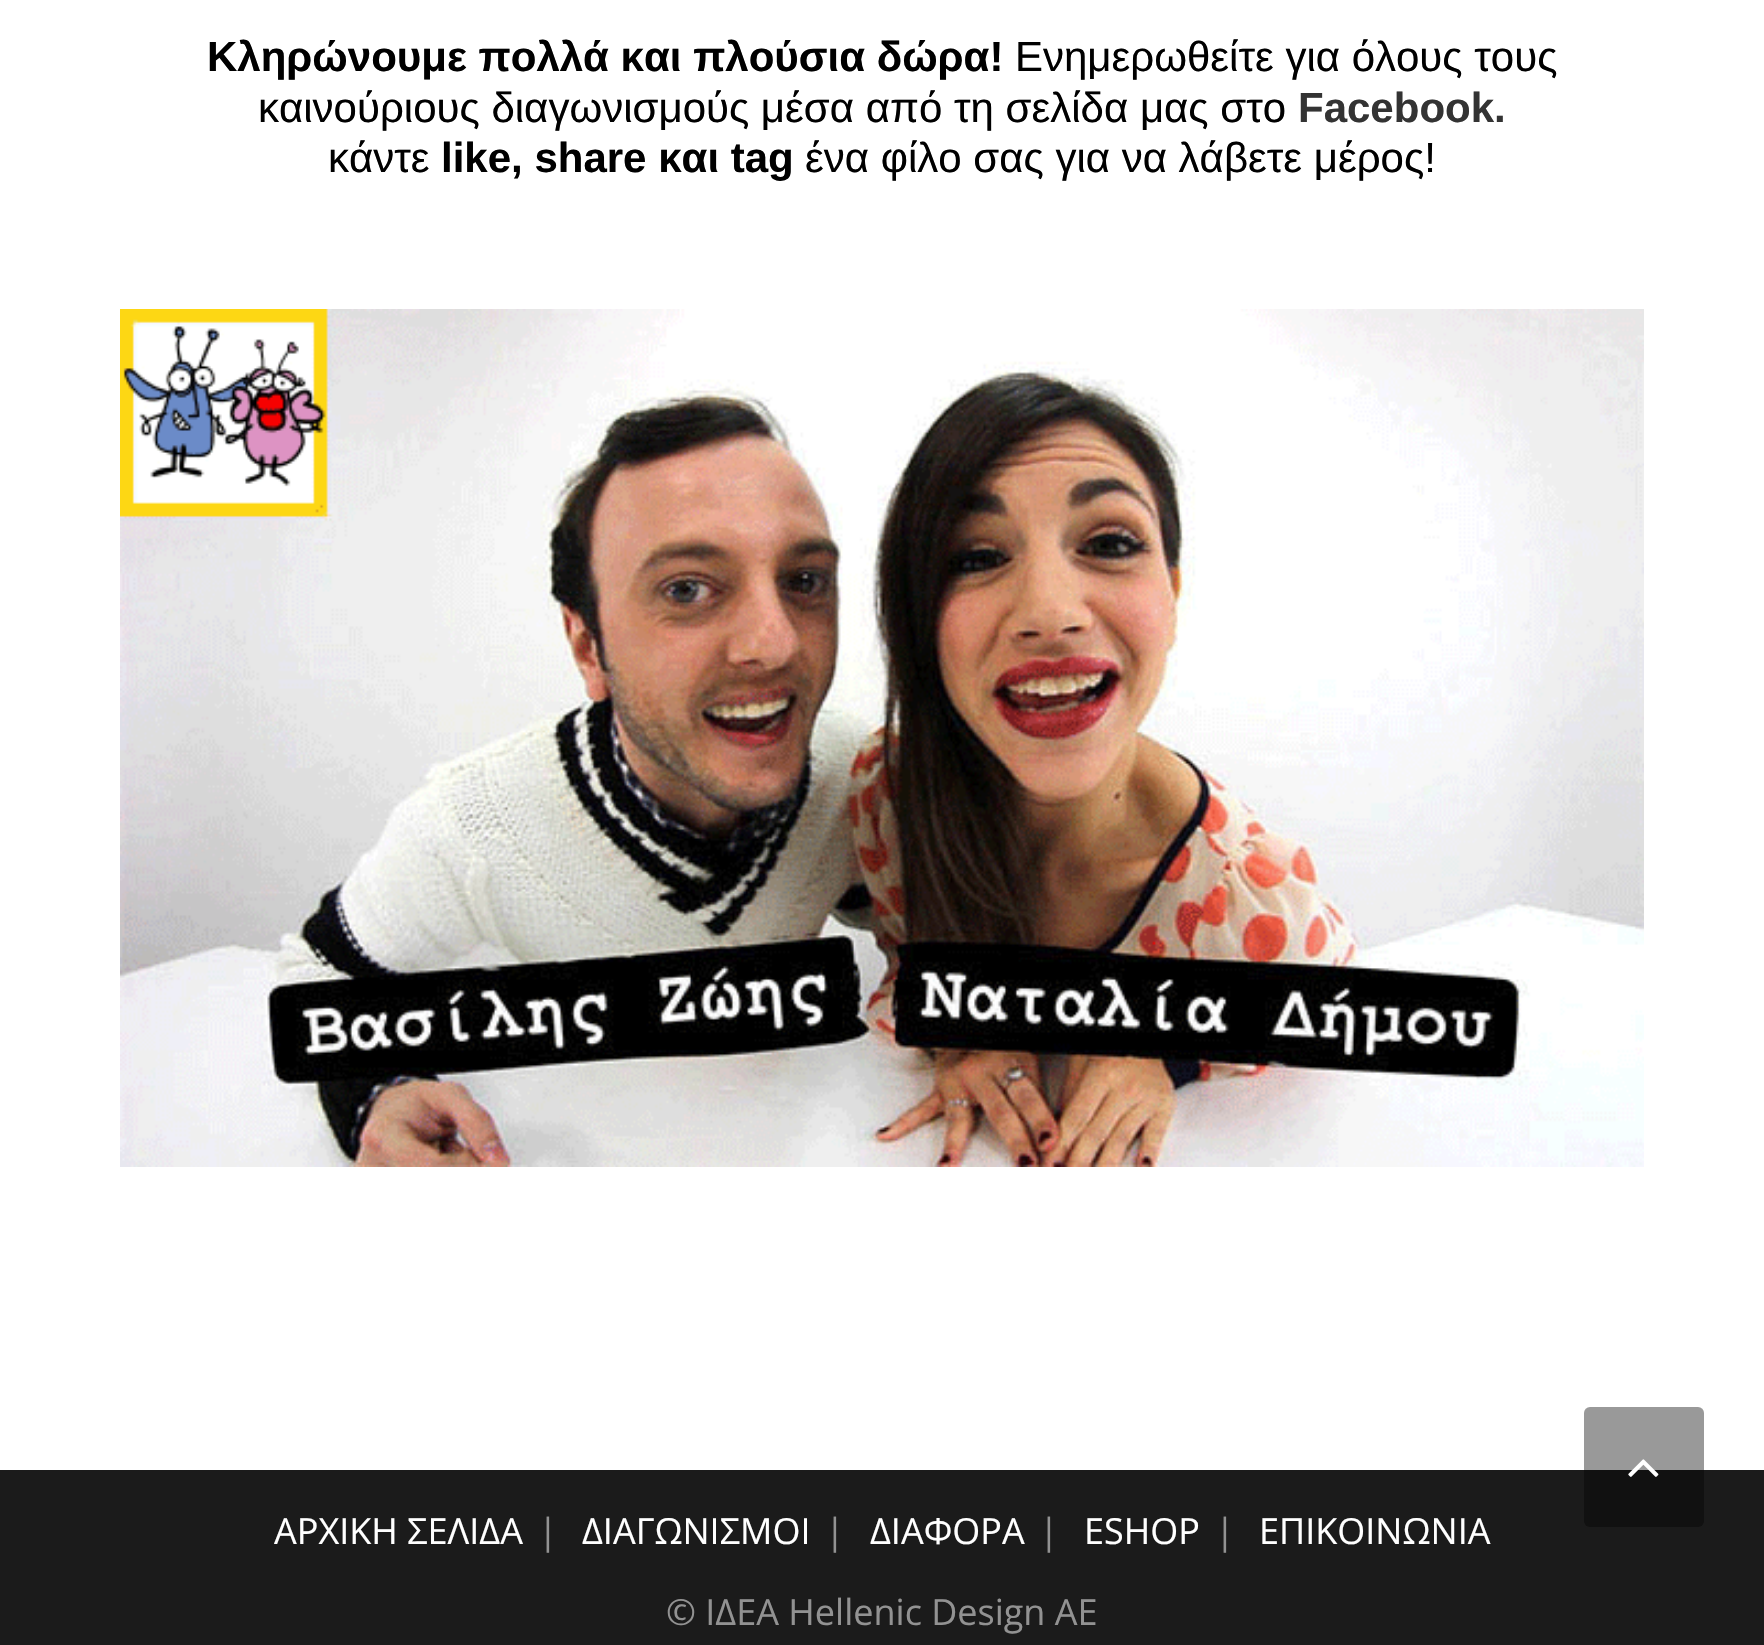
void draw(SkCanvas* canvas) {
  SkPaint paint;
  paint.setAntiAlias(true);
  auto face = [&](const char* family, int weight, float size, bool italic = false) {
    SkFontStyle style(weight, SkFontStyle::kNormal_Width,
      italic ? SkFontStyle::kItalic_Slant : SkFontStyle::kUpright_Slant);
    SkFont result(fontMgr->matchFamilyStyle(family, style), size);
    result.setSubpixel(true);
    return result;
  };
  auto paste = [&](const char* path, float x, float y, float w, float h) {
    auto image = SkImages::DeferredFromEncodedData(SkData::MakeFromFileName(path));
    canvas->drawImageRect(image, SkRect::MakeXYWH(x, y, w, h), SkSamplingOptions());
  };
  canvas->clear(0xffffffff);
  paste("img/1.png", 120, 309, 1524, 858);
  paint.setColor(0xff1b1b1b);
  canvas->drawRect(SkRect::MakeXYWH(0, 1470, 1764, 175), paint);
  paint.setColor(0x66000000);
  canvas->drawRoundRect(SkRect::MakeXYWH(1584, 1407, 120, 120), 6, 6, paint);
  paste("img/2.png", 1628, 1459, 31, 18);
  auto f0 = face("Liberation Sans", 700, 42);
  paint.setColor(0xff000000);
  canvas->drawString("Κληρώνουμε πολλά και πλούσια δώρα!", 207, 71, f0, paint);
  auto f1 = face("Liberation Sans", 400, 42);
  canvas->drawString("Ενημερωθείτε για όλους τους", 1015, 71, f1, paint);
  canvas->drawString("καινούριους διαγωνισμούς μέσα από τη σελίδα μας στο", 258, 122, f1, paint);
  paint.setColor(0xff333333);
  canvas->drawString("Facebook.", 1298, 122, f0, paint);
  paint.setColor(0xff000000);
  canvas->drawString("κάντε", 328, 172, f1, paint);
  canvas->drawString("like, share και tag", 441, 172, f0, paint);
  canvas->drawString("ένα φίλο σας για να λάβετε μέρος!", 805, 172, f1, paint);
  auto f2 = face("Open Sans", 400, 36);
  paint.setColor(0xffffffff);
  canvas->drawString("ΑΡΧΙΚΗ ΣΕΛΙΔΑ", 274, 1544, f2, paint);
  paint.setColor(0xff929292);
  canvas->drawString("|", 538, 1544, f2, paint);
  paint.setColor(0xffffffff);
  canvas->drawString("ΔΙΑΓΩΝΙΣΜΟΙ", 582, 1544, f2, paint);
  paint.setColor(0xff929292);
  canvas->drawString("|", 825, 1544, f2, paint);
  paint.setColor(0xffffffff);
  canvas->drawString("ΔΙΑΦΟΡΑ", 870, 1544, f2, paint);
  paint.setColor(0xff929292);
  canvas->drawString("|", 1039, 1544, f2, paint);
  paint.setColor(0xffffffff);
  canvas->drawString("ESHOP", 1084, 1544, f2, paint);
  paint.setColor(0xff929292);
  canvas->drawString("|", 1215, 1544, f2, paint);
  paint.setColor(0xffffffff);
  canvas->drawString("ΕΠΙΚΟΙΝΩΝΙΑ", 1259, 1544, f2, paint);
  paint.setColor(0xff929292);
  canvas->drawString("© ΙΔΕΑ Hellenic Design AE", 666, 1625, f2, paint);
}
